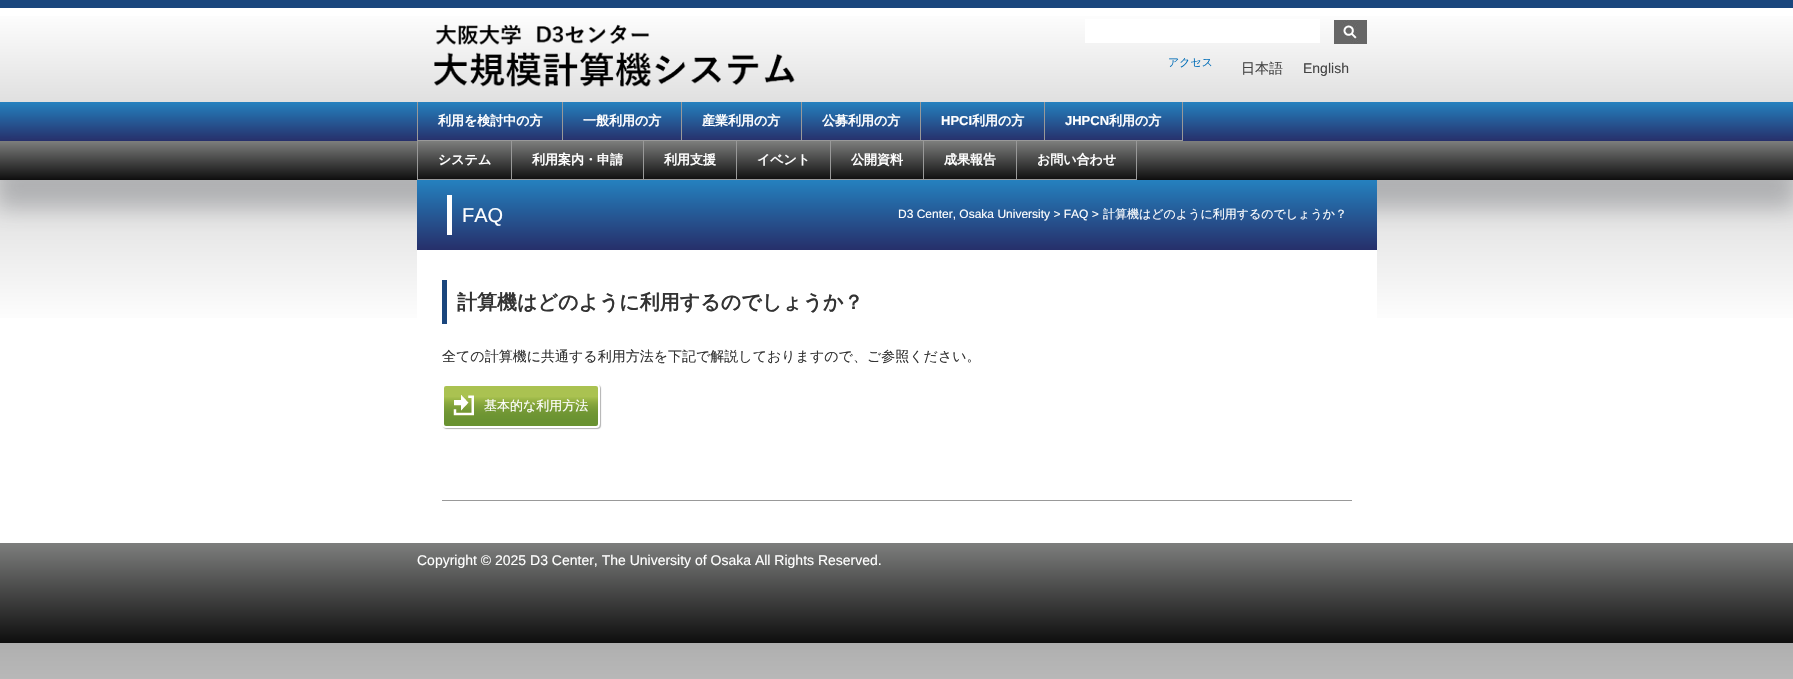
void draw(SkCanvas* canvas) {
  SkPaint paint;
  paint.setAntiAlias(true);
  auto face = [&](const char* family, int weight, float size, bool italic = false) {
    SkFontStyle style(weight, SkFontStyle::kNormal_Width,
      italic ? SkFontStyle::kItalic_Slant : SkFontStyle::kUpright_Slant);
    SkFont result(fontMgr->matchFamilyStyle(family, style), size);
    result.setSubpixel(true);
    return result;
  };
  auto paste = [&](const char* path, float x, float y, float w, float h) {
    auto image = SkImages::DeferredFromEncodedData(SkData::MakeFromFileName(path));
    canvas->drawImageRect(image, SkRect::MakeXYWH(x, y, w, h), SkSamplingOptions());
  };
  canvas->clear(0xffffffff);
  {
    const SkColor colors[] = {0xffafafaf, 0xffffffff, 0xffffffff};
    const float stops[] = {0, 0.51f, 0.99f};
    const SkPoint ends[] = {{897, 0}, {897, 643}};
    paint.setShader(SkGradientShader::MakeLinear(ends, colors, stops, 3, SkTileMode::kClamp));
    paint.setAlpha(255);
  }
  canvas->drawRect(SkRect::MakeXYWH(0, 180, 1793, 138), paint);
  {
    const SkColor colors[] = {0xffafafaf, 0xffffffff, 0xffffffff};
    const float stops[] = {0, 0.51f, 0.99f};
    const SkPoint ends[] = {{897, 643}, {897, 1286}};
    paint.setShader(SkGradientShader::MakeLinear(ends, colors, stops, 3, SkTileMode::kClamp));
    paint.setAlpha(255);
  }
  canvas->drawRect(SkRect::MakeXYWH(0, 643, 1793, 36), paint);
  {
    const SkColor colors[] = {0xffffffff, 0xffe0e0e0};
    const float stops[] = {0, 1};
    const SkPoint ends[] = {{897, 8}, {897, 102}};
    paint.setShader(SkGradientShader::MakeLinear(ends, colors, stops, 2, SkTileMode::kClamp));
    paint.setAlpha(255);
  }
  canvas->drawRect(SkRect::MakeXYWH(0, 16, 1793, 86), paint);
  paint.setShader(nullptr);
  paint.setColor(0xff1a467d);
  canvas->drawRect(SkRect::MakeXYWH(0, 0, 1793, 8), paint);
  paste("img/1.png", 434, 24, 361, 63);
  paint.setColor(0xffffffff);
  canvas->drawRect(SkRect::MakeXYWH(1085, 19, 235, 24), paint);
  paste("img/2.png", 1334, 20, 33, 24);
  {
    const SkColor colors[] = {0xff2581bf, 0xff262f6a};
    const float stops[] = {0, 1};
    const SkPoint ends[] = {{897, 102}, {897, 141}};
    paint.setShader(SkGradientShader::MakeLinear(ends, colors, stops, 2, SkTileMode::kClamp));
    paint.setAlpha(255);
  }
  canvas->drawRect(SkRect::MakeXYWH(0, 102, 1793, 39), paint);
  paint.setShader(nullptr);
  paint.setColor(0xff999999);
  canvas->drawRect(SkRect::MakeXYWH(417, 102, 1, 39), paint);
  paint.setColor(0x5456595e);
  paint.setMaskFilter(SkMaskFilter::MakeBlur(kNormal_SkBlurStyle, 11));
  canvas->drawRect(SkRect::MakeXYWH(-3, 164, 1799, 45), paint);
  paint.setMaskFilter(nullptr);
  {
    const struct { float x, y, w, h; SkColor color; } items[] = {
      {562, 102, 1, 39, 0xff999999},
      {418, 140, 145, 1, 0xff999999},
      {681, 102, 1, 39, 0xff999999},
      {563, 140, 119, 1, 0xff999999},
      {801, 102, 1, 39, 0xff999999},
      {682, 140, 120, 1, 0xff999999},
      {920, 102, 1, 39, 0xff999999},
      {802, 140, 119, 1, 0xff999999},
      {1044, 102, 1, 39, 0xff999999},
      {921, 140, 124, 1, 0xff999999},
      {1182, 102, 1, 39, 0xff999999},
      {1045, 140, 138, 1, 0xff999999},
    };
    for (auto [x, y, w, h, color] : items) {
      paint.setColor(color);
      canvas->drawRect(SkRect::MakeXYWH(x, y, w, h), paint);
    }
  }
  {
    const SkColor colors[] = {0xff7d7e7d, 0xff0e0e0e};
    const float stops[] = {0, 1};
    const SkPoint ends[] = {{897, 141}, {897, 180}};
    paint.setShader(SkGradientShader::MakeLinear(ends, colors, stops, 2, SkTileMode::kClamp));
    paint.setAlpha(255);
  }
  canvas->drawRect(SkRect::MakeXYWH(0, 141, 1793, 39), paint);
  paint.setShader(nullptr);
  {
    const struct { float x, y, w, h; SkColor color; } items[] = {
      {417, 141, 1, 39, 0xff999999},
      {511, 141, 1, 39, 0xff999999},
      {418, 179, 94, 1, 0xff999999},
      {643, 141, 1, 39, 0xff999999},
      {512, 179, 132, 1, 0xff999999},
      {736, 141, 1, 39, 0xff999999},
      {644, 179, 93, 1, 0xff999999},
      {830, 141, 1, 39, 0xff999999},
      {737, 179, 94, 1, 0xff999999},
      {923, 141, 1, 39, 0xff999999},
      {831, 179, 93, 1, 0xff999999},
      {1016, 141, 1, 39, 0xff999999},
      {924, 179, 93, 1, 0xff999999},
      {1136, 141, 1, 39, 0xff999999},
      {1017, 179, 120, 1, 0xff999999},
    };
    for (auto [x, y, w, h, color] : items) {
      paint.setColor(color);
      canvas->drawRect(SkRect::MakeXYWH(x, y, w, h), paint);
    }
  }
  {
    const SkColor colors[] = {0xff2581bf, 0xff262f6a};
    const float stops[] = {0, 1};
    const SkPoint ends[] = {{897, 180}, {897, 250}};
    paint.setShader(SkGradientShader::MakeLinear(ends, colors, stops, 2, SkTileMode::kClamp));
    paint.setAlpha(255);
  }
  canvas->drawRect(SkRect::MakeXYWH(417, 180, 960, 70), paint);
  paint.setShader(nullptr);
  {
    const struct { float x, y, w, h; SkColor color; } items[] = {
      {447, 195, 5, 40, 0xffffffff},
      {417, 250, 960, 68, 0xffffffff},
      {442, 280, 5, 44, 0xff1a467d},
    };
    for (auto [x, y, w, h, color] : items) {
      paint.setColor(color);
      canvas->drawRect(SkRect::MakeXYWH(x, y, w, h), paint);
    }
  }
  paint.setColor(0x4d000000);
  paint.setMaskFilter(SkMaskFilter::MakeBlur(kNormal_SkBlurStyle, 0.5f));
  canvas->drawRoundRect(SkRect::MakeXYWH(443, 385, 158, 44), 4, 4, paint);
  paint.setMaskFilter(nullptr);
  paste("img/3.png", 444, 386, 156, 40);
  paint.setStroke(true);
  paint.setStrokeWidth(2);
  paint.setColor(0xffffffff);
  canvas->drawRoundRect(SkRect::MakeXYWH(443, 385, 156, 42), 3, 3, paint);
  paint.setStroke(false);
  paint.setColor(0xff999999);
  canvas->drawRect(SkRect::MakeXYWH(442, 500, 910, 1), paint);
  {
    const SkColor colors[] = {0xff7d7e7d, 0xff0e0e0e};
    const float stops[] = {0, 1};
    const SkPoint ends[] = {{897, 543}, {897, 643}};
    paint.setShader(SkGradientShader::MakeLinear(ends, colors, stops, 2, SkTileMode::kClamp));
    paint.setAlpha(255);
  }
  canvas->drawRect(SkRect::MakeXYWH(0, 543, 1793, 100), paint);
  auto f0 = face("WenQuanYi Zen Hei", 500, 11);
  paint.setShader(nullptr);
  paint.setColor(0xff036eb8);
  canvas->drawString("アクセス", 1168, 66, f0, paint);
  auto f1 = face("WenQuanYi Zen Hei", 500, 14);
  paint.setColor(0xff444444);
  canvas->drawString("日本語", 1241, 73, f1, paint);
  auto f2 = face("Liberation Sans", 400, 14);
  canvas->drawString("English", 1303, 73, f2, paint);
  auto f3 = face("WenQuanYi Zen Hei", 700, 13);
  paint.setColor(0xffffffff);
  {
    const struct { const char* s; float x, y; } items[] = {
      {"利用を検討中の方", 438, 125},
      {"一般利用の方", 583, 125},
      {"産業利用の方", 702, 125},
      {"公募利用の方", 822, 125},
    };
    for (auto [s, x, y] : items) {
      canvas->drawString(s, x, y, f3, paint);
    }
  }
  auto f4 = face("Liberation Sans", 700, 13);
  canvas->drawString("HPCI", 941, 125, f4, paint);
  canvas->drawString("利用の方", 972, 125, f3, paint);
  canvas->drawString("JHPCN", 1065, 125, f4, paint);
  {
    const struct { const char* s; float x, y; } items[] = {
      {"利用の方", 1109, 125},
      {"システム", 438, 164},
      {"利用案内・申請", 532, 164},
      {"利用支援", 664, 164},
      {"イベント", 757, 164},
      {"公開資料", 851, 164},
      {"成果報告", 944, 164},
      {"お問い合わせ", 1037, 164},
    };
    for (auto [s, x, y] : items) {
      canvas->drawString(s, x, y, f3, paint);
    }
  }
  auto f5 = face("Liberation Sans", 400, 20);
  canvas->drawString("FAQ", 462, 222, f5, paint);
  auto f6 = face("Liberation Sans", 400, 12);
  canvas->drawString("D3 Center, Osaka University > FAQ >", 898, 218, f6, paint);
  auto f7 = face("WenQuanYi Zen Hei", 500, 12);
  canvas->drawString("計算機はどのように利用するのでしょうか？", 1103, 218, f7, paint);
  auto f8 = face("WenQuanYi Zen Hei", 700, 20);
  paint.setColor(0xff333333);
  canvas->drawString("計算機はどのように利用するのでしょうか？", 457, 309, f8, paint);
  canvas->drawString("全ての計算機に共通する利用方法を下記で解説しておりますので、ご参照ください。", 442, 361, f1, paint);
  auto f9 = face("WenQuanYi Zen Hei", 500, 13);
  paint.setColor(0xffffffff);
  canvas->drawString("基本的な利用方法", 484, 410, f9, paint);
  canvas->drawString("Copyright © 2025 D3 Center, The University of Osaka All Rights Reserved.", 417, 565, f2, paint);
}
